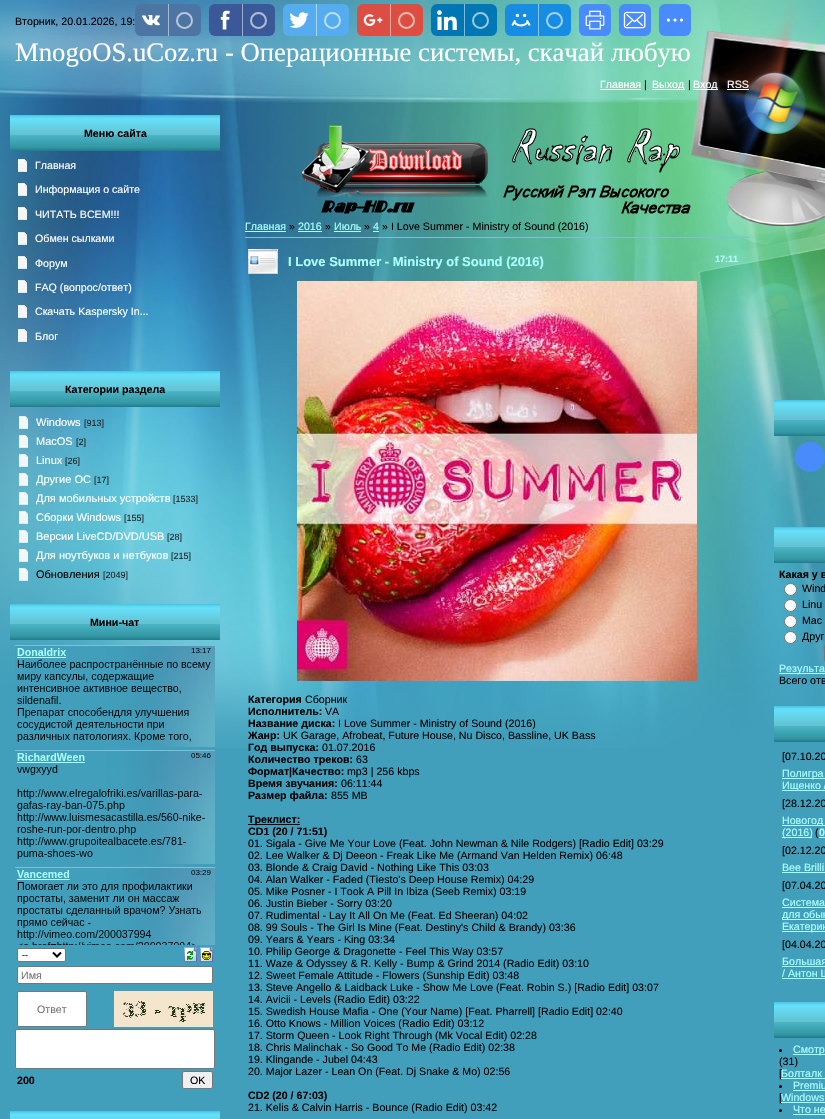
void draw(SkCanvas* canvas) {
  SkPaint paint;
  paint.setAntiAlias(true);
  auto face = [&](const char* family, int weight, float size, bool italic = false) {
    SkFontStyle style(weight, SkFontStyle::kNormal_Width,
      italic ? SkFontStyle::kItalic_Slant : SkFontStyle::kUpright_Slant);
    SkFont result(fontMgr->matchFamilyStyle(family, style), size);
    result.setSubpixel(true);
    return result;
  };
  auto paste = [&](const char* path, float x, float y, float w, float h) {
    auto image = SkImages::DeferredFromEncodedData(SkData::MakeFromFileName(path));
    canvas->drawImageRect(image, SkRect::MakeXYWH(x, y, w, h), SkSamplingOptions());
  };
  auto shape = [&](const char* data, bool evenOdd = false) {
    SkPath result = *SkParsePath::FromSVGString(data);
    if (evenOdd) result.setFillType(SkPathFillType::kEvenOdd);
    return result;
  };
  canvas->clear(0xff419fbb);
  paste("img/10.png", 0, 0, 825, 748);
  paint.setColor(0xff4d75a3);
  canvas->drawRoundRect(SkRect::MakeXYWH(135, 4, 66, 32), 6, 6, paint);
  paste("img/1.png", 142, 15, 18, 11);
  paint.setColor(0xffa6bad1);
  canvas->drawRect(SkRect::MakeXYWH(168, 4, 1, 32), paint);
  paint.setStroke(true);
  paint.setStrokeWidth(2);
  paint.setColor(0xffb8c8da);
  canvas->drawCircle(184.5f, 20.5f, 7.5f, paint);
  paint.setStroke(false);
  paint.setColor(0xff3b5998);
  canvas->drawRoundRect(SkRect::MakeXYWH(209, 4, 66, 32), 6, 6, paint);
  paste("img/2.png", 220, 10, 10, 20);
  paint.setColor(0xff9daccc);
  canvas->drawRect(SkRect::MakeXYWH(242, 4, 1, 32), paint);
  paint.setStroke(true);
  paint.setColor(0xffb1bdd6);
  canvas->drawCircle(258.5f, 20.5f, 7.5f, paint);
  paint.setStroke(false);
  paint.setColor(0xff55acee);
  canvas->drawRoundRect(SkRect::MakeXYWH(283, 4, 66, 32), 6, 6, paint);
  paste("img/3.png", 289, 12, 20, 16);
  paint.setColor(0xffaad6f7);
  canvas->drawRect(SkRect::MakeXYWH(316, 4, 1, 32), paint);
  paint.setStroke(true);
  paint.setColor(0xffbbdef8);
  canvas->drawCircle(332.5f, 20.5f, 7.5f, paint);
  paint.setStroke(false);
  paint.setColor(0xffdc4e41);
  canvas->drawRoundRect(SkRect::MakeXYWH(357, 4, 66, 32), 6, 6, paint);
  paste("img/4.png", 363, 14, 20, 12);
  paint.setColor(0xffeea7a0);
  canvas->drawRect(SkRect::MakeXYWH(390, 4, 1, 32), paint);
  paint.setStroke(true);
  paint.setColor(0xfff1b8b3);
  canvas->drawCircle(406.5f, 20.5f, 7.5f, paint);
  paint.setStroke(false);
  paint.setColor(0xff0077b5);
  canvas->drawRoundRect(SkRect::MakeXYWH(431, 4, 66, 32), 6, 6, paint);
  paste("img/5.png", 437, 10, 20, 20);
  paint.setColor(0xff80bbda);
  canvas->drawRect(SkRect::MakeXYWH(464, 4, 1, 32), paint);
  paint.setStroke(true);
  paint.setColor(0xff99c9e1);
  canvas->drawCircle(480.5f, 20.5f, 7.5f, paint);
  paint.setStroke(false);
  paint.setColor(0xff168de2);
  canvas->drawRoundRect(SkRect::MakeXYWH(505, 4, 66, 32), 6, 6, paint);
  paste("img/6.png", 511, 13, 20, 14);
  paint.setColor(0xff8bc6f1);
  canvas->drawRect(SkRect::MakeXYWH(538, 4, 1, 32), paint);
  paint.setStroke(true);
  paint.setColor(0xffa2d1f3);
  canvas->drawCircle(554.5f, 20.5f, 7.5f, paint);
  paint.setStroke(false);
  paint.setColor(0xff498bfa);
  canvas->drawRoundRect(SkRect::MakeXYWH(579, 4, 32, 32), 6, 6, paint);
  paste("img/7.png", 585, 10, 20, 20);
  canvas->drawRoundRect(SkRect::MakeXYWH(619, 4, 32, 32), 6, 6, paint);
  paste("img/8.png", 623, 11, 23, 18);
  canvas->drawRoundRect(SkRect::MakeXYWH(659, 4, 32, 32), 6, 6, paint);
  paste("img/9.png", 666, 18, 18, 4);
  {
    const struct { float x, y, w, h; SkColor color; } items[] = {
      {600, 89, 41, 1, 0xffffffff},
      {652, 89, 33, 1, 0xffffffff},
      {693, 89, 25, 1, 0xffffffff},
      {727, 89, 22, 1, 0xffffffff},
    };
    for (auto [x, y, w, h, color] : items) {
      paint.setColor(color);
      canvas->drawRect(SkRect::MakeXYWH(x, y, w, h), paint);
    }
  }
  paste("img/11.png", 774, 400, 51, 36);
  paint.setColor(0xff498bfa);
  canvas->drawCircle(810, 457, 15, paint);
  paste("img/11.png", 774, 527, 51, 36);
  paint.setColor(0xffffffff);
  canvas->drawCircle(790.5f, 589.5f, 6, paint);
  paint.setStroke(true);
  paint.setStrokeWidth(1);
  paint.setColor(0xff767676);
  canvas->drawCircle(790.5f, 589.5f, 6, paint);
  paint.setStroke(false);
  paint.setColor(0xffffffff);
  canvas->drawCircle(790.5f, 605.5f, 6, paint);
  paint.setStroke(true);
  paint.setColor(0xff767676);
  canvas->drawCircle(790.5f, 605.5f, 6, paint);
  paint.setStroke(false);
  paint.setColor(0xffffffff);
  canvas->drawCircle(790.5f, 621.5f, 6, paint);
  paint.setStroke(true);
  paint.setColor(0xff767676);
  canvas->drawCircle(790.5f, 621.5f, 6, paint);
  paint.setStroke(false);
  paint.setColor(0xffffffff);
  canvas->drawCircle(790.5f, 637.5f, 6, paint);
  paint.setStroke(true);
  paint.setColor(0xff767676);
  canvas->drawCircle(790.5f, 637.5f, 6, paint);
  canvas->drawRoundRect(SkRect::MakeXYWH(824.5f, 644.5f, 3, 17), 1.5f, 1.5f, paint);
  paint.setStroke(false);
  paint.setColor(0xffabfffe);
  canvas->drawRect(SkRect::MakeXYWH(779, 673, 46, 1), paint);
  paste("img/11.png", 774, 706, 51, 36);
  {
    const struct { float x, y, w, h; SkColor color; } items[] = {
      {782, 778, 43, 1, 0xffabfffe},
      {782, 790, 43, 1, 0xffabfffe},
      {782, 825, 43, 1, 0xffabfffe},
      {782, 837, 30, 1, 0xffabfffe},
      {819, 837, 6, 1, 0xffabfffe},
      {782, 872, 43, 1, 0xffabfffe},
      {782, 907, 43, 1, 0xffabfffe},
      {782, 919, 43, 1, 0xffabfffe},
      {782, 931, 43, 1, 0xffabfffe},
      {782, 966, 43, 1, 0xffabfffe},
      {782, 978, 43, 1, 0xffabfffe},
    };
    for (auto [x, y, w, h, color] : items) {
      paint.setColor(color);
      canvas->drawRect(SkRect::MakeXYWH(x, y, w, h), paint);
    }
  }
  paste("img/11.png", 774, 1002, 51, 36);
  paint.setColor(0xff000000);
  canvas->drawCircle(780.5f, 1050.5f, 1.5f, paint);
  paint.setColor(0xffabfffe);
  canvas->drawRect(SkRect::MakeXYWH(793, 1054, 32, 1), paint);
  paint.setColor(0xff000000);
  canvas->drawCircle(780.5f, 1086.5f, 1.5f, paint);
  paint.setColor(0xffabfffe);
  canvas->drawRect(SkRect::MakeXYWH(793, 1090, 32, 1), paint);
  paint.setColor(0xff000000);
  canvas->drawCircle(780.5f, 1110.5f, 1.5f, paint);
  paint.setColor(0xffabfffe);
  canvas->drawRect(SkRect::MakeXYWH(793, 1114, 32, 1), paint);
  paste("img/12.png", 10, 115, 210, 36);
  paste("img/13.png", 18, 159, 9, 13);
  paste("img/14.png", 18, 183, 9, 13);
  paste("img/15.png", 18, 207, 9, 13);
  paste("img/16.png", 18, 232, 9, 13);
  paste("img/17.png", 18, 256, 9, 13);
  paste("img/18.png", 18, 280, 9, 13);
  paste("img/19.png", 18, 305, 9, 13);
  paste("img/20.png", 18, 329, 9, 13);
  paste("img/12.png", 10, 371, 210, 36);
  paste("img/21.png", 19, 416, 9, 13);
  paste("img/22.png", 19, 435, 9, 13);
  paste("img/23.png", 19, 454, 9, 13);
  paste("img/24.png", 19, 473, 9, 13);
  paste("img/25.png", 19, 492, 9, 13);
  paste("img/26.png", 19, 511, 9, 13);
  paste("img/27.png", 19, 530, 9, 13);
  paste("img/28.png", 19, 549, 9, 13);
  paste("img/29.png", 19, 568, 9, 13);
  paste("img/12.png", 10, 604, 210, 36);
  paste("img/30.png", 15, 645, 200, 300);
  paint.setColor(0xffffffff);
  canvas->drawRoundRect(SkRect::MakeXYWH(17.5f, 948.5f, 48, 13), 1.5f, 1.5f, paint);
  paint.setStroke(true);
  paint.setColor(0xff767676);
  canvas->drawRoundRect(SkRect::MakeXYWH(17.5f, 948.5f, 48, 13), 1.5f, 1.5f, paint);
  paint.setStrokeWidth(2);
  paint.setColor(0xff000000);
  canvas->drawPath(shape("M53 952.5L57 956.5L61 952.5"), paint);
  paste("img/31.png", 184, 947, 13, 15);
  paste("img/32.png", 200, 947, 13, 15);
  paint.setStroke(false);
  paint.setColor(0xffffffff);
  canvas->drawRoundRect(SkRect::MakeXYWH(17.5f, 966.5f, 195, 17), 1.5f, 1.5f, paint);
  paint.setStroke(true);
  paint.setStrokeWidth(1);
  paint.setColor(0xff767676);
  canvas->drawRoundRect(SkRect::MakeXYWH(17.5f, 966.5f, 195, 17), 1.5f, 1.5f, paint);
  paint.setStroke(false);
  paint.setColor(0xffffffff);
  canvas->drawRoundRect(SkRect::MakeXYWH(17.5f, 991.5f, 69, 35), 1.5f, 1.5f, paint);
  paint.setStroke(true);
  paint.setColor(0xff767676);
  canvas->drawRoundRect(SkRect::MakeXYWH(17.5f, 991.5f, 69, 35), 1.5f, 1.5f, paint);
  paste("img/33.png", 114, 991, 99, 36);
  paint.setStroke(false);
  paint.setColor(0xffffffff);
  canvas->drawRoundRect(SkRect::MakeXYWH(15.5f, 1029.5f, 199, 39), 1.5f, 1.5f, paint);
  paint.setStroke(true);
  paint.setColor(0xff767676);
  canvas->drawRoundRect(SkRect::MakeXYWH(15.5f, 1029.5f, 199, 39), 1.5f, 1.5f, paint);
  paint.setStroke(false);
  paint.setColor(0xffefefef);
  canvas->drawRoundRect(SkRect::MakeXYWH(182.5f, 1071.5f, 30, 17), 1.5f, 1.5f, paint);
  paint.setStroke(true);
  paint.setColor(0xff767676);
  canvas->drawRoundRect(SkRect::MakeXYWH(182.5f, 1071.5f, 30, 17), 1.5f, 1.5f, paint);
  paste("img/34.png", 10, 1111, 210, 8);
  paste("img/35.png", 302, 125, 389, 89);
  paint.setStroke(false);
  {
    const struct { float x, y, w, h; SkColor color; } items[] = {
      {245, 231, 41, 1, 0xffabfffe},
      {298, 231, 24, 1, 0xffabfffe},
      {334, 231, 27, 1, 0xffabfffe},
      {373, 231, 6, 1, 0xffabfffe},
      {245, 237, 504, 1, 0xff81bed8},
    };
    for (auto [x, y, w, h, color] : items) {
      paint.setColor(color);
      canvas->drawRect(SkRect::MakeXYWH(x, y, w, h), paint);
    }
  }
  paste("img/36.png", 248, 249, 30, 25);
  paste("img/37.png", 297, 281, 400, 400);
  paint.setColor(0xff000000);
  canvas->drawRect(SkRect::MakeXYWH(248, 824, 52, 1), paint);
  auto f0 = face("Liberation Sans", 400, 10.65f);
  canvas->drawString("Вторник, 20.01.2026, 19:", 15, 25, f0, paint);
  auto f1 = face("Liberation Serif", 400, 26.7f);
  paint.setColor(0xffffffff);
  canvas->drawString("MnogoOS.uCoz.ru - Операционные системы, скачай любую", 15, 61, f1, paint);
  canvas->drawString("Главная", 600, 88, f0, paint);
  paint.setColor(0xff000000);
  canvas->drawString("|", 644, 88, f0, paint);
  paint.setColor(0xffffffff);
  canvas->drawString("Выход", 652, 88, f0, paint);
  paint.setColor(0xff000000);
  canvas->drawString("|", 688, 88, f0, paint);
  paint.setColor(0xffffffff);
  canvas->drawString("Вход", 693, 88, f0, paint);
  canvas->drawString("RSS", 727, 88, f0, paint);
  auto f2 = face("Liberation Sans", 700, 10.65f);
  paint.setColor(0xff000000);
  canvas->drawString("Какая у в", 779, 578, f2, paint);
  {
    const struct { const char* s; float x, y; } items[] = {
      {"Wind", 802, 592},
      {"Linu", 802, 608},
      {"Mac", 802, 624},
      {"Друг", 802, 640},
    };
    for (auto [s, x, y] : items) {
      canvas->drawString(s, x, y, f0, paint);
    }
  }
  paint.setColor(0xffabfffe);
  canvas->drawString("Результа", 779, 672, f0, paint);
  paint.setColor(0xff000000);
  canvas->drawString("Всего отв", 779, 684, f0, paint);
  canvas->drawString("[07.10.20", 782, 760, f0, paint);
  paint.setColor(0xffabfffe);
  canvas->drawString("Полигра", 782, 777, f0, paint);
  canvas->drawString("Ищенко /", 782, 789, f0, paint);
  paint.setColor(0xff000000);
  canvas->drawString("[28.12.20", 782, 807, f0, paint);
  paint.setColor(0xffabfffe);
  canvas->drawString("Новогод", 782, 824, f0, paint);
  canvas->drawString("(2016)", 782, 836, f0, paint);
  paint.setColor(0xff000000);
  canvas->drawString("(", 815, 836, f0, paint);
  paint.setColor(0xffabfffe);
  canvas->drawString("0", 819, 836, f2, paint);
  paint.setColor(0xff000000);
  canvas->drawString("[02.12.20", 782, 854, f0, paint);
  paint.setColor(0xffabfffe);
  canvas->drawString("Bee Brilli", 782, 871, f0, paint);
  paint.setColor(0xff000000);
  canvas->drawString("[07.04.20", 782, 889, f0, paint);
  paint.setColor(0xffabfffe);
  {
    const struct { const char* s; float x, y; } items[] = {
      {"Система", 782, 906},
      {"для обык", 782, 918},
      {"Екатерин", 782, 930},
    };
    for (auto [s, x, y] : items) {
      canvas->drawString(s, x, y, f0, paint);
    }
  }
  paint.setColor(0xff000000);
  canvas->drawString("[04.04.20", 782, 948, f0, paint);
  paint.setColor(0xffabfffe);
  {
    const struct { const char* s; float x, y; } items[] = {
      {"Большая", 782, 965},
      {"/ Антон Ш", 782, 977},
      {"Смотр", 793, 1053},
    };
    for (auto [s, x, y] : items) {
      canvas->drawString(s, x, y, f0, paint);
    }
  }
  paint.setColor(0xff000000);
  canvas->drawString("(31)", 779, 1065, f0, paint);
  canvas->drawString("[", 779, 1077, f0, paint);
  paint.setColor(0xffabfffe);
  canvas->drawString("Болталк", 781, 1077, f0, paint);
  canvas->drawRect(SkRect::MakeXYWH(781, 1078, 44, 1), paint);
  canvas->drawString("Premiu", 793, 1089, f0, paint);
  paint.setColor(0xff000000);
  canvas->drawString("[", 779, 1101, f0, paint);
  paint.setColor(0xffabfffe);
  canvas->drawString("Windows", 781, 1101, f0, paint);
  canvas->drawRect(SkRect::MakeXYWH(781, 1102, 44, 1), paint);
  canvas->drawString("Что не", 793, 1113, f0, paint);
  paint.setColor(0xff000000);
  canvas->drawString("Меню сайта", 84, 137, f2, paint);
  paint.setColor(0xffffffff);
  {
    const struct { const char* s; float x, y; } items[] = {
      {"Главная", 35, 169},
      {"Информация о сайте", 35, 193},
      {"ЧИТАТЬ ВСЕМ!!!", 35, 218},
      {"Обмен сылками", 35, 242},
      {"Форум", 35, 267},
      {"FAQ (вопрос/ответ)", 35, 291},
      {"Скачать Kaspersky In...", 35, 315},
      {"Блог", 35, 340},
    };
    for (auto [s, x, y] : items) {
      canvas->drawString(s, x, y, f0, paint);
    }
  }
  paint.setColor(0xff000000);
  canvas->drawString("Категории раздела", 65, 393, f2, paint);
  auto f3 = face("Liberation Sans", 400, 11);
  paint.setColor(0xffffffff);
  canvas->drawString("Windows", 36, 426, f3, paint);
  auto f4 = face("Liberation Sans", 400, 9);
  paint.setColor(0xff222222);
  canvas->drawString("[913]", 84, 426, f4, paint);
  paint.setColor(0xffffffff);
  canvas->drawString("MacOS", 36, 445, f3, paint);
  paint.setColor(0xff222222);
  canvas->drawString("[2]", 76, 445, f4, paint);
  paint.setColor(0xffffffff);
  canvas->drawString("Linux", 36, 464, f3, paint);
  paint.setColor(0xff222222);
  canvas->drawString("[26]", 65, 464, f4, paint);
  paint.setColor(0xffffffff);
  canvas->drawString("Другие ОС", 36, 483, f3, paint);
  paint.setColor(0xff222222);
  canvas->drawString("[17]", 94, 483, f4, paint);
  paint.setColor(0xffffffff);
  canvas->drawString("Для мобильных устройств", 36, 502, f3, paint);
  paint.setColor(0xff222222);
  canvas->drawString("[1533]", 173, 502, f4, paint);
  paint.setColor(0xffffffff);
  canvas->drawString("Сборки Windows", 36, 521, f3, paint);
  paint.setColor(0xff222222);
  canvas->drawString("[155]", 124, 521, f4, paint);
  paint.setColor(0xffffffff);
  canvas->drawString("Версии LiveCD/DVD/USB", 36, 540, f3, paint);
  paint.setColor(0xff222222);
  canvas->drawString("[28]", 167, 540, f4, paint);
  paint.setColor(0xffffffff);
  canvas->drawString("Для ноутбуков и нетбуков", 36, 559, f3, paint);
  paint.setColor(0xff222222);
  canvas->drawString("[215]", 171, 559, f4, paint);
  paint.setColor(0xff000000);
  canvas->drawString("Обновления", 36, 578, f3, paint);
  paint.setColor(0xff222222);
  canvas->drawString("[2049]", 103, 578, f4, paint);
  paint.setColor(0xff000000);
  canvas->drawString("Мини-чат", 90, 626, f2, paint);
  canvas->drawString("--", 22, 958, f4, paint);
  paint.setColor(0xff757575);
  canvas->drawString("Имя", 21, 979, f0, paint);
  canvas->drawString("Ответ", 37, 1013, f0, paint);
  paint.setColor(0xff000000);
  canvas->drawString("200", 17, 1084, f2, paint);
  canvas->drawString("OK", 190, 1084, f0, paint);
  paint.setColor(0xffabfffe);
  canvas->drawString("Главная", 245, 230, f0, paint);
  paint.setColor(0xff000000);
  canvas->drawString("»", 289, 230, f0, paint);
  paint.setColor(0xffabfffe);
  canvas->drawString("2016", 298, 230, f0, paint);
  paint.setColor(0xff000000);
  canvas->drawString("»", 325, 230, f0, paint);
  paint.setColor(0xffabfffe);
  canvas->drawString("Июль", 334, 230, f0, paint);
  paint.setColor(0xff000000);
  canvas->drawString("»", 364, 230, f0, paint);
  paint.setColor(0xffabfffe);
  canvas->drawString("4", 373, 230, f0, paint);
  paint.setColor(0xff000000);
  canvas->drawString("» I Love Summer - Ministry of Sound (2016)", 382, 230, f0, paint);
  auto f5 = face("Liberation Sans", 700, 13);
  paint.setColor(0xffabfffe);
  canvas->drawString("I Love Summer - Ministry of Sound (2016)", 288, 266, f5, paint);
  auto f6 = face("Liberation Sans", 700, 9);
  canvas->drawString("17:11", 715, 262, f6, paint);
  paint.setColor(0xff000000);
  canvas->drawString("Категория", 248, 703, f2, paint);
  canvas->drawString("Сборник", 305, 703, f0, paint);
  canvas->drawString("Исполнитель:", 248, 715, f2, paint);
  canvas->drawString("VA", 325, 715, f0, paint);
  canvas->drawString("Название диска:", 248, 727, f2, paint);
  canvas->drawString("I Love Summer - Ministry of Sound (2016)", 338, 727, f0, paint);
  canvas->drawString("Жанр:", 248, 739, f2, paint);
  canvas->drawString("UK Garage, Afrobeat, Future House, Nu Disco, Bassline, UK Bass", 283, 739, f0, paint);
  canvas->drawString("Год выпуска:", 248, 751, f2, paint);
  canvas->drawString("01.07.2016", 322, 751, f0, paint);
  canvas->drawString("Количество треков:", 248, 763, f2, paint);
  canvas->drawString("63", 356, 763, f0, paint);
  canvas->drawString("Формат|Качество:", 248, 775, f2, paint);
  canvas->drawString("mp3 | 256 kbps", 347, 775, f0, paint);
  canvas->drawString("Время звучания:", 248, 787, f2, paint);
  canvas->drawString("06:11:44", 341, 787, f0, paint);
  canvas->drawString("Размер файла:", 248, 799, f2, paint);
  canvas->drawString("855 MB", 331, 799, f0, paint);
  canvas->drawString("Треклист:", 248, 823, f2, paint);
  canvas->drawString("CD1 (20 / 71:51)", 248, 835, f2, paint);
  {
    const struct { const char* s; float x, y; } items[] = {
      {"01. Sigala - Give Me Your Love (Feat. John Newman & Nile Rodgers) [Radio Edit] 03:29", 248, 847},
      {"02. Lee Walker & Dj Deeon - Freak Like Me (Armand Van Helden Remix) 06:48", 248, 859},
      {"03. Blonde & Craig David - Nothing Like This 03:03", 248, 871},
      {"04. Alan Walker - Faded (Tiesto's Deep House Remix) 04:29", 248, 883},
      {"05. Mike Posner - I Took A Pill In Ibiza (Seeb Remix) 03:19", 248, 895},
      {"06. Justin Bieber - Sorry 03:20", 248, 907},
      {"07. Rudimental - Lay It All On Me (Feat. Ed Sheeran) 04:02", 248, 919},
      {"08. 99 Souls - The Girl Is Mine (Feat. Destiny's Child & Brandy) 03:36", 248, 931},
      {"09. Years & Years - King 03:34", 248, 943},
      {"10. Philip George & Dragonette - Feel This Way 03:57", 248, 955},
      {"11. Waze & Odyssey & R. Kelly - Bump & Grind 2014 (Radio Edit) 03:10", 248, 967},
      {"12. Sweet Female Attitude - Flowers (Sunship Edit) 03:48", 248, 979},
      {"13. Steve Angello & Laidback Luke - Show Me Love (Feat. Robin S.) [Radio Edit] 03:07", 248, 991},
      {"14. Avicii - Levels (Radio Edit) 03:22", 248, 1003},
      {"15. Swedish House Mafia - One (Your Name) [Feat. Pharrell] [Radio Edit] 02:40", 248, 1015},
      {"16. Otto Knows - Million Voices (Radio Edit) 03:12", 248, 1027},
      {"17. Storm Queen - Look Right Through (Mk Vocal Edit) 02:28", 248, 1039},
      {"18. Chris Malinchak - So Good To Me (Radio Edit) 02:38", 248, 1051},
      {"19. Klingande - Jubel 04:43", 248, 1063},
      {"20. Major Lazer - Lean On (Feat. Dj Snake & Mo) 02:56", 248, 1075},
    };
    for (auto [s, x, y] : items) {
      canvas->drawString(s, x, y, f0, paint);
    }
  }
  canvas->drawString("CD2 (20 / 67:03)", 248, 1099, f2, paint);
  canvas->drawString("21. Kelis & Calvin Harris - Bounce (Radio Edit) 03:42", 248, 1111, f0, paint);
}
